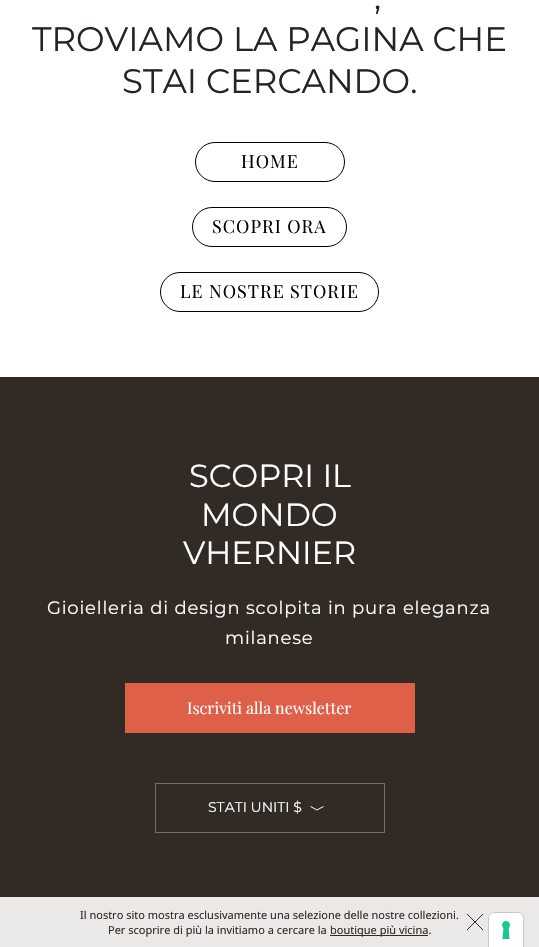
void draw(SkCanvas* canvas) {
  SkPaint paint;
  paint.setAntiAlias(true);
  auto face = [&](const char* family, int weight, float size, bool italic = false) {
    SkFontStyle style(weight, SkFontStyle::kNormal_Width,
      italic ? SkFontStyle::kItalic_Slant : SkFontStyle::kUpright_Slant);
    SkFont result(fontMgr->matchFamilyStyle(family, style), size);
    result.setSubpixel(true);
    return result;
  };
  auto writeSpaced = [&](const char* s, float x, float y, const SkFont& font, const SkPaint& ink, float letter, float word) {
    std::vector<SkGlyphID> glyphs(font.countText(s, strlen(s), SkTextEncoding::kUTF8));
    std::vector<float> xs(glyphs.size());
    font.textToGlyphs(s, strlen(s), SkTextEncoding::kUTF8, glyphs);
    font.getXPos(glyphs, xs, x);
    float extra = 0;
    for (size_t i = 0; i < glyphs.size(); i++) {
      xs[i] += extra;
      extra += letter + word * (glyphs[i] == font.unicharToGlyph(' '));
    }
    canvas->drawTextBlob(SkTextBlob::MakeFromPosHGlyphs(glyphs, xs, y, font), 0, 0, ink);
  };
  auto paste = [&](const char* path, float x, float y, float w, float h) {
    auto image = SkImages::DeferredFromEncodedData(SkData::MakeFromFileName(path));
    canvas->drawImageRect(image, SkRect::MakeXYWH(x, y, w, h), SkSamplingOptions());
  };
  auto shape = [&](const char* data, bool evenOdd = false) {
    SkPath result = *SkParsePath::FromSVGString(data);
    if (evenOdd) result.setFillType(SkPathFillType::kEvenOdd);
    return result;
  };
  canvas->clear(0xffffffff);
  paint.setStroke(true);
  paint.setStrokeWidth(1);
  paint.setColor(0xff000000);
  canvas->drawRoundRect(SkRect::MakeXYWH(195.5f, 142.5f, 149, 39), 19.5f, 19.5f, paint);
  canvas->drawRoundRect(SkRect::MakeXYWH(192.5f, 207.5f, 154, 39), 19.5f, 19.5f, paint);
  canvas->drawRoundRect(SkRect::MakeXYWH(160.5f, 272.5f, 218, 39), 19.5f, 19.5f, paint);
  paint.setStroke(false);
  paint.setColor(0xff322b25);
  canvas->drawRect(SkRect::MakeXYWH(0, 377, 539, 520), paint);
  paint.setColor(0xffdf6048);
  canvas->drawRect(SkRect::MakeXYWH(125, 683, 290, 50), paint);
  paint.setStroke(true);
  paint.setColor(0xff707070);
  canvas->drawRect(SkRect::MakeXYWH(155.5f, 783.5f, 229, 49), paint);
  paint.setColor(0xffffffff);
  canvas->drawPath(shape("M323.5 806.5L317 810L310.5 806.5"), paint);
  paint.setStroke(false);
  paint.setColor(0xffeae9e8);
  canvas->drawRect(SkRect::MakeXYWH(0, 897, 539, 50), paint);
  paint.setColor(0xff322b25);
  canvas->drawRect(SkRect::MakeXYWH(330, 935, 98, 1), paint);
  paint.setStroke(true);
  canvas->drawPath(shape("M467 914L483 930M467 930L483 914"), paint);
  paint.setColor(0xffc7c6c5);
  canvas->drawPath(shape("M495 912.5H517C520.5 912.5 523.5 915.5 523.5 919V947.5H488.5V919C488.5 915.5 491.5 912.5 495 912.5Z"), paint);
  paint.setStroke(false);
  paint.setColor(0xffffffff);
  canvas->drawPath(shape("M495 913H517C520.5 913 523 915.5 523 919V947H489V919C489 915.5 491.5 913 495 913Z"), paint);
  paste("img/1.png", 502, 921, 8, 18);
  auto f0 = face("Montserrat", 400, 34);
  paint.setColor(0xff212529);
  {
    const struct { const char* s; float x, y; } items[] = {
      {",", 374, 9},
      {"TROVIAMO LA PAGINA CHE", 32, 51},
      {"STAI CERCANDO.", 122, 93},
    };
    for (auto [s, x, y] : items) {
      canvas->drawString(s, x, y, f0, paint);
    }
  }
  auto f1 = face("Playfair Display", 400, 18);
  paint.setColor(0xff000000);
  {
    const struct { const char* s; float x, y; } items[] = {
      {"HOME", 241, 168},
      {"SCOPRI ORA", 212, 233},
      {"LE NOSTRE STORIE", 180, 298},
    };
    for (auto [s, x, y] : items) {
      writeSpaced(s, x, y, f1, paint, 1, 0);
    }
  }
  auto f2 = face("Montserrat", 400, 32);
  paint.setColor(0xffffffff);
  {
    const struct { const char* s; float x, y; } items[] = {
      {"SCOPRI IL", 189, 487},
      {"MONDO", 201, 526},
      {"VHERNIER", 183, 564},
    };
    for (auto [s, x, y] : items) {
      canvas->drawString(s, x, y, f2, paint);
    }
  }
  auto f3 = face("Montserrat", 400, 18);
  writeSpaced("Gioielleria di design scolpita in pura eleganza", 47, 614, f3, paint, 0.8f, 0);
  writeSpaced("milanese", 225, 644, f3, paint, 0.8f, 0);
  auto f4 = face("Playfair Display", 400, 16);
  canvas->drawString("Iscriviti alla newsletter", 187, 714, f4, paint);
  auto f5 = face("Montserrat", 400, 14);
  canvas->drawString("STATI UNITI $", 208, 812, f5, paint);
  auto f6 = face("Noto Sans", 400, 11);
  paint.setColor(0xff322b25);
  {
    const struct { const char* s; float x, y; } items[] = {
      {"Il nostro sito mostra esclusivamente una selezione delle nostre collezioni.", 80, 919},
      {"Per scoprire di più la invitiamo a cercare la", 108, 934},
      {"boutique più vicina.", 330, 934},
    };
    for (auto [s, x, y] : items) {
      canvas->drawString(s, x, y, f6, paint);
    }
  }
}
